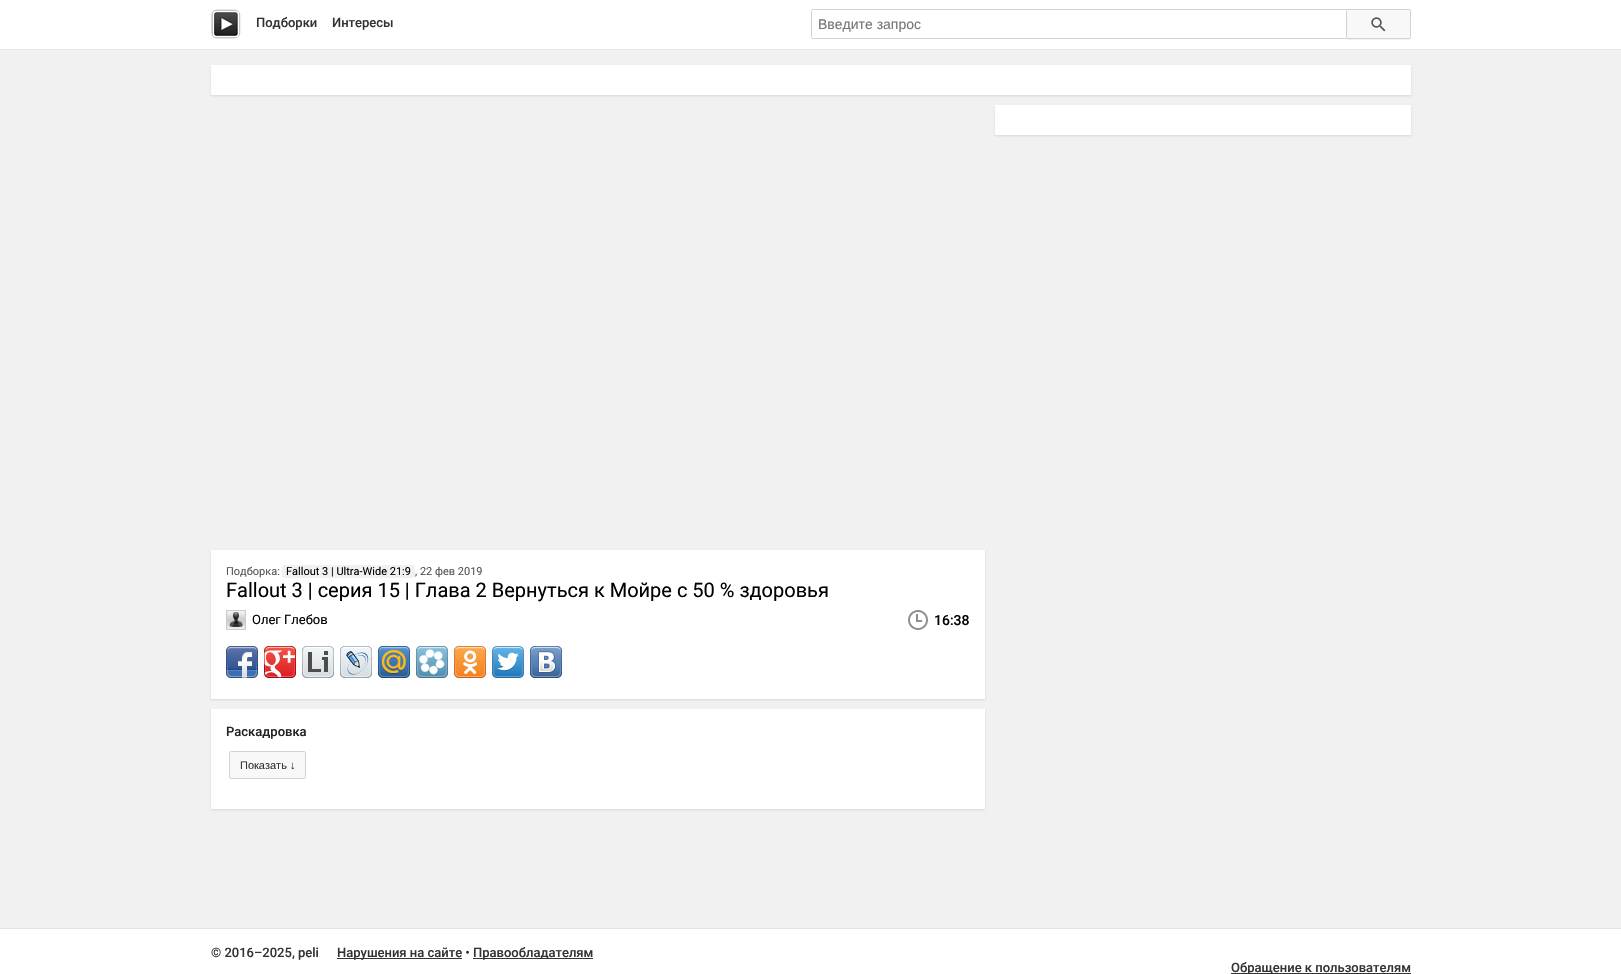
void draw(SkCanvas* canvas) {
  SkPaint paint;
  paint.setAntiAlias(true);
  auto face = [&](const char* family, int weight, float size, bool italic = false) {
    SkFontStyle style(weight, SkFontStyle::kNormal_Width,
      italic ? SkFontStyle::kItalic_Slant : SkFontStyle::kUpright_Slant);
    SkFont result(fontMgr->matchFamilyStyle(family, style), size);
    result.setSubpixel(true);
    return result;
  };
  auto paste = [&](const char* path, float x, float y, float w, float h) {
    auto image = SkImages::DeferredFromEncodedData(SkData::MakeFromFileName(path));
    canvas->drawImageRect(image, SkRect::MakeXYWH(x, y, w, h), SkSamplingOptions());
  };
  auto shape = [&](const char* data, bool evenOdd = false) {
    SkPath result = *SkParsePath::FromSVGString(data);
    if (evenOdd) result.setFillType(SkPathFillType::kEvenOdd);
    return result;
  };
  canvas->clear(0xfff1f1f1);
  paint.setColor(0xffffffff);
  canvas->drawRect(SkRect::MakeXYWH(0, 0, 1621, 49), paint);
  paint.setColor(0xffe8e8e8);
  canvas->drawRect(SkRect::MakeXYWH(0, 49, 1621, 1), paint);
  paste("img/1.png", 211, 9, 30, 30);
  paint.setStroke(true);
  paint.setStrokeWidth(1);
  paint.setColor(0xffd3d3d3);
  canvas->drawPath(shape("M813 9.5H1346.5V38.5H813C812 38.5 811.5 38 811.5 37V11C811.5 10 812 9.5 813 9.5Z"), paint);
  paint.setStroke(false);
  paint.setColor(0xfff2f2f2);
  canvas->drawPath(shape("M1347 39V40H1409C1410 40 1411 39 1411 38V37C1411 38 1410 39 1409 39Z"), paint);
  paint.setColor(0xfff8f8f8);
  canvas->drawPath(shape("M1347 9H1409C1410 9 1411 10 1411 11V37C1411 38 1410 39 1409 39H1347Z"), paint);
  {
    const struct { float x, y, w, h; SkColor color; } items[] = {
      {1347, 9, 63, 1, 0xffd3d3d3},
      {1410, 10, 1, 28, 0xffd3d3d3},
      {1347, 38, 63, 1, 0xffd3d3d3},
    };
    for (auto [x, y, w, h, color] : items) {
      paint.setColor(color);
      canvas->drawRect(SkRect::MakeXYWH(x, y, w, h), paint);
    }
  }
  paste("img/2.png", 1371, 17, 15, 15);
  paint.setColor(0x1a000000);
  paint.setMaskFilter(SkMaskFilter::MakeBlur(kNormal_SkBlurStyle, 1));
  canvas->drawRect(SkRect::MakeXYWH(211, 66, 1200, 30), paint);
  paint.setMaskFilter(nullptr);
  paint.setColor(0xffffffff);
  canvas->drawRect(SkRect::MakeXYWH(211, 65, 1200, 30), paint);
  paint.setColor(0x1a000000);
  paint.setMaskFilter(SkMaskFilter::MakeBlur(kNormal_SkBlurStyle, 1));
  canvas->drawRect(SkRect::MakeXYWH(995, 106, 416, 30), paint);
  paint.setMaskFilter(nullptr);
  paint.setColor(0xffffffff);
  canvas->drawRect(SkRect::MakeXYWH(995, 105, 416, 30), paint);
  paint.setColor(0x1a000000);
  paint.setMaskFilter(SkMaskFilter::MakeBlur(kNormal_SkBlurStyle, 1));
  canvas->drawRect(SkRect::MakeXYWH(211, 551, 774, 149), paint);
  paint.setMaskFilter(nullptr);
  paint.setColor(0xffffffff);
  canvas->drawRect(SkRect::MakeXYWH(211, 550, 774, 149), paint);
  paint.setColor(0xfff1f1f1);
  canvas->drawRoundRect(SkRect::MakeXYWH(282, 565, 133, 13), 2, 2, paint);
  paste("img/3.png", 226, 610, 20, 20);
  paste("img/4.png", 908, 610, 20, 20);
  paste("img/5.png", 226, 646, 32, 32);
  paste("img/6.png", 264, 646, 32, 32);
  paste("img/7.png", 302, 646, 32, 32);
  paste("img/8.png", 340, 646, 32, 32);
  paste("img/9.png", 378, 646, 32, 32);
  paste("img/10.png", 416, 646, 32, 32);
  paste("img/11.png", 454, 646, 32, 32);
  paste("img/12.png", 492, 646, 32, 32);
  paste("img/13.png", 530, 646, 32, 32);
  paint.setColor(0x1a000000);
  paint.setMaskFilter(SkMaskFilter::MakeBlur(kNormal_SkBlurStyle, 1));
  canvas->drawRect(SkRect::MakeXYWH(211, 710, 774, 100), paint);
  paint.setMaskFilter(nullptr);
  paint.setColor(0xffffffff);
  canvas->drawRect(SkRect::MakeXYWH(211, 709, 774, 100), paint);
  paint.setColor(0xfff8f8f8);
  canvas->drawRoundRect(SkRect::MakeXYWH(229.5f, 751.5f, 76, 27), 1.5f, 1.5f, paint);
  paint.setStroke(true);
  paint.setColor(0xffd3d3d3);
  canvas->drawRoundRect(SkRect::MakeXYWH(229.5f, 751.5f, 76, 27), 1.5f, 1.5f, paint);
  paint.setStroke(false);
  {
    const struct { float x, y, w, h; SkColor color; } items[] = {
      {0, 929, 1621, 45, 0xffffffff},
      {0, 928, 1621, 1, 0xffe2e2e2},
      {337, 958, 125, 1, 0xff333333},
      {473, 958, 120, 1, 0xff333333},
      {1231, 973, 180, 1, 0xff333333},
    };
    for (auto [x, y, w, h, color] : items) {
      paint.setColor(color);
      canvas->drawRect(SkRect::MakeXYWH(x, y, w, h), paint);
    }
  }
  auto f0 = face("Roboto", 500, 13);
  canvas->drawString("Подборки", 256, 27, f0, paint);
  canvas->drawString("Интересы", 332, 27, f0, paint);
  auto f1 = face("Liberation Sans", 400, 14);
  paint.setColor(0xff757575);
  canvas->drawString("Введите запрос", 818, 29, f1, paint);
  auto f2 = face("Roboto", 400, 11);
  paint.setColor(0xff555555);
  canvas->drawString("Подборка:", 226, 575, f2, paint);
  paint.setColor(0xff000000);
  canvas->drawString("Fallout 3 | Ultra-Wide 21:9", 286, 575, f2, paint);
  paint.setColor(0xff555555);
  canvas->drawString(", 22 фев 2019", 415, 575, f2, paint);
  auto f3 = face("Roboto", 400, 20);
  paint.setColor(0xff000000);
  canvas->drawString("Fallout 3 | серия 15 | Глава 2 Вернуться к Мойре с 50 % здоровья", 226, 597, f3, paint);
  auto f4 = face("Roboto", 400, 13);
  canvas->drawString("Олег Глебов", 252, 624, f4, paint);
  auto f5 = face("Roboto", 500, 14);
  canvas->drawString("16:38", 934, 625, f5, paint);
  paint.setColor(0xff222222);
  canvas->drawString("Раскадровка", 226, 736, f0, paint);
  auto f6 = face("Liberation Sans", 400, 11);
  paint.setColor(0xff333333);
  canvas->drawString("Показать ↓", 240, 769, f6, paint);
  {
    const struct { const char* s; float x, y; } items[] = {
      {"© 2016–2025, peli", 211, 957},
      {"Нарушения на сайте •", 337, 957},
      {"Правообладателям", 473, 957},
      {"Обращение к пользователям", 1231, 972},
    };
    for (auto [s, x, y] : items) {
      canvas->drawString(s, x, y, f0, paint);
    }
  }
}
